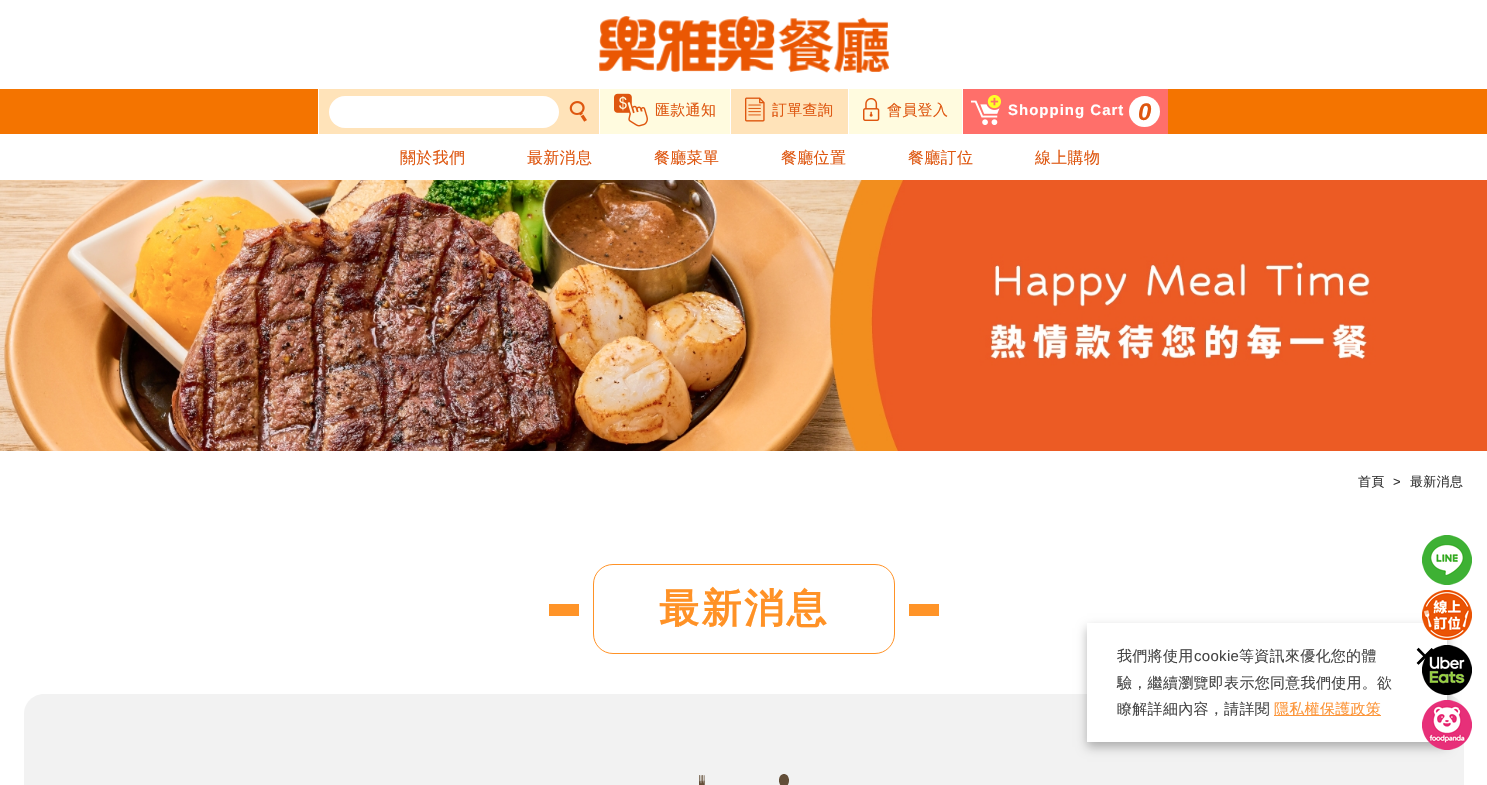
void draw(SkCanvas* canvas) {
  SkPaint paint;
  paint.setAntiAlias(true);
  auto face = [&](const char* family, int weight, float size, bool italic = false) {
    SkFontStyle style(weight, SkFontStyle::kNormal_Width,
      italic ? SkFontStyle::kItalic_Slant : SkFontStyle::kUpright_Slant);
    SkFont result(fontMgr->matchFamilyStyle(family, style), size);
    result.setSubpixel(true);
    return result;
  };
  auto writeSpaced = [&](const char* s, float x, float y, const SkFont& font, const SkPaint& ink, float letter, float word) {
    std::vector<SkGlyphID> glyphs(font.countText(s, strlen(s), SkTextEncoding::kUTF8));
    std::vector<float> xs(glyphs.size());
    font.textToGlyphs(s, strlen(s), SkTextEncoding::kUTF8, glyphs);
    font.getXPos(glyphs, xs, x);
    float extra = 0;
    for (size_t i = 0; i < glyphs.size(); i++) {
      xs[i] += extra;
      extra += letter + word * (glyphs[i] == font.unicharToGlyph(' '));
    }
    canvas->drawTextBlob(SkTextBlob::MakeFromPosHGlyphs(glyphs, xs, y, font), 0, 0, ink);
  };
  auto paste = [&](const char* path, float x, float y, float w, float h) {
    auto image = SkImages::DeferredFromEncodedData(SkData::MakeFromFileName(path));
    canvas->drawImageRect(image, SkRect::MakeXYWH(x, y, w, h), SkSamplingOptions());
  };
  auto shape = [&](const char* data, bool evenOdd = false) {
    SkPath result = *SkParsePath::FromSVGString(data);
    if (evenOdd) result.setFillType(SkPathFillType::kEvenOdd);
    return result;
  };
  canvas->clear(0xffffffff);
  paste("img/1.png", 599, 16, 290, 57);
  {
    const struct { float x, y, w, h; SkColor color; } items[] = {
      {0, 89, 1487, 45, 0xfff47400},
      {318, 89, 1, 45, 0xffffffff},
      {319, 89, 280, 45, 0xffffe3b9},
    };
    for (auto [x, y, w, h, color] : items) {
      paint.setColor(color);
      canvas->drawRect(SkRect::MakeXYWH(x, y, w, h), paint);
    }
  }
  paint.setColor(0xffffffff);
  canvas->drawRoundRect(SkRect::MakeXYWH(329, 96, 230, 32), 16, 16, paint);
  paste("img/2.png", 569, 101, 18, 21);
  canvas->drawRect(SkRect::MakeXYWH(599, 89, 1, 45), paint);
  paint.setColor(0xfffffbdf);
  canvas->drawRect(SkRect::MakeXYWH(600, 89, 130, 45), paint);
  paste("img/3.png", 614, 93, 34, 34);
  paint.setColor(0xffffffff);
  canvas->drawRect(SkRect::MakeXYWH(730, 89, 1, 45), paint);
  paint.setColor(0xffffe3b9);
  canvas->drawRect(SkRect::MakeXYWH(731, 89, 117, 45), paint);
  paste("img/4.png", 745, 97, 20, 25);
  paint.setColor(0xffffffff);
  canvas->drawRect(SkRect::MakeXYWH(848, 89, 1, 45), paint);
  paint.setColor(0xfffffbdf);
  canvas->drawRect(SkRect::MakeXYWH(849, 89, 113, 45), paint);
  paste("img/5.png", 863, 98, 17, 23);
  paint.setColor(0xffffffff);
  canvas->drawRect(SkRect::MakeXYWH(962, 89, 1, 45), paint);
  paint.setColor(0xffff6f6a);
  canvas->drawRect(SkRect::MakeXYWH(963, 89, 205, 45), paint);
  paste("img/6.png", 971, 95, 30, 30);
  paint.setColor(0xffffffff);
  canvas->drawCircle(1144.5f, 111.5f, 15.5f, paint);
  paint.setColor(0xfff2f2f2);
  canvas->drawPath(shape("M44 694H1444C1455 694 1464 703 1464 714V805H24V714C24 703 33 694 44 694Z"), paint);
  paint.setColor(0x4a000000);
  paint.setMaskFilter(SkMaskFilter::MakeBlur(kNormal_SkBlurStyle, 5));
  canvas->drawRect(SkRect::MakeXYWH(1087, 628, 360, 119), paint);
  paint.setMaskFilter(nullptr);
  paint.setColor(0xffffffff);
  canvas->drawRect(SkRect::MakeXYWH(1087, 623, 360, 119), paint);
  paint.setColor(0xfffc9539);
  canvas->drawRect(SkRect::MakeXYWH(1274, 715, 107, 1), paint);
  paste("img/7.png", 0, 180, 1487, 271);
  paint.setColor(0xffff9428);
  canvas->drawRect(SkRect::MakeXYWH(549, 604, 390, 12), paint);
  paint.setColor(0xffffffff);
  canvas->drawRect(SkRect::MakeXYWH(579, 604, 330, 12), paint);
  paint.setStroke(true);
  paint.setStrokeWidth(1);
  paint.setColor(0xffff9226);
  canvas->drawRoundRect(SkRect::MakeXYWH(593.5f, 564.5f, 301, 89), 19.5f, 19.5f, paint);
  paste("img/8.png", 699, 774, 90, 11);
  paste("img/9.png", 1422, 535, 50, 50);
  paste("img/10.png", 1422, 590, 50, 50);
  paste("img/12.png", 1422, 700, 50, 50);
  auto f0 = face("WenQuanYi Zen Hei", 500, 15);
  paint.setStroke(false);
  paint.setColor(0xffde560f);
  {
    const struct { const char* s; float x, y; } items[] = {
      {"匯款通知", 655, 115},
      {"訂單查詢", 772, 115},
      {"會員登入", 887, 115},
    };
    for (auto [s, x, y] : items) {
      writeSpaced(s, x, y, f0, paint, 0.3f, 0);
    }
  }
  auto f1 = face("Liberation Sans", 700, 15);
  paint.setColor(0xffffffff);
  writeSpaced("Shopping Cart", 1008, 115, f1, paint, 1, 0);
  auto f2 = face("Liberation Sans", 700, 24, true);
  paint.setColor(0xffde560f);
  writeSpaced("0", 1138, 120, f2, paint, 1, 0);
  auto f3 = face("WenQuanYi Zen Hei", 500, 16);
  {
    const struct { const char* s; float x, y; } items[] = {
      {"關於我們", 400, 163},
      {"最新消息", 527, 163},
      {"餐廳菜單", 654, 163},
      {"餐廳位置", 781, 163},
      {"餐廳訂位", 908, 163},
      {"線上購物", 1035, 163},
    };
    for (auto [s, x, y] : items) {
      writeSpaced(s, x, y, f3, paint, 0.3f, 0);
    }
  }
  paint.setColor(0xff444444);
  writeSpaced("我們將使用", 1117, 661, f0, paint, 0.3f, 0);
  auto f4 = face("Liberation Sans", 400, 15);
  writeSpaced("cookie", 1194, 661, f4, paint, 0.3f, 0);
  {
    const struct { const char* s; float x, y; } items[] = {
      {"等資訊來優化您的體", 1239, 661},
      {"驗，繼續瀏覽即表示您同意我們使用。欲", 1117, 688},
      {"瞭解詳細內容，請詳閱", 1117, 714},
    };
    for (auto [s, x, y] : items) {
      writeSpaced(s, x, y, f0, paint, 0.3f, 0);
    }
  }
  paint.setColor(0xfffc9539);
  writeSpaced("隱私權保護政策", 1274, 714, f0, paint, 0.3f, 0);
  auto f5 = face("Liberation Sans", 400, 38);
  paint.setColor(0xff000000);
  canvas->drawString("×", 1414, 669, f5, paint);
  auto f6 = face("WenQuanYi Zen Hei", 500, 13);
  paint.setColor(0xff333333);
  writeSpaced("首頁", 1358, 486, f6, paint, 0.3f, 0);
  auto f7 = face("Liberation Sans", 400, 13);
  writeSpaced(">", 1393, 486, f7, paint, 0.3f, 0);
  writeSpaced("最新消息", 1410, 486, f6, paint, 0.3f, 0);
  auto f8 = face("WenQuanYi Zen Hei", 700, 40);
  paint.setColor(0xffff9226);
  writeSpaced("最新消息", 659, 622, f8, paint, 2.5f, 0);
  paste("img/11.png", 1422, 645, 50, 50);
}
